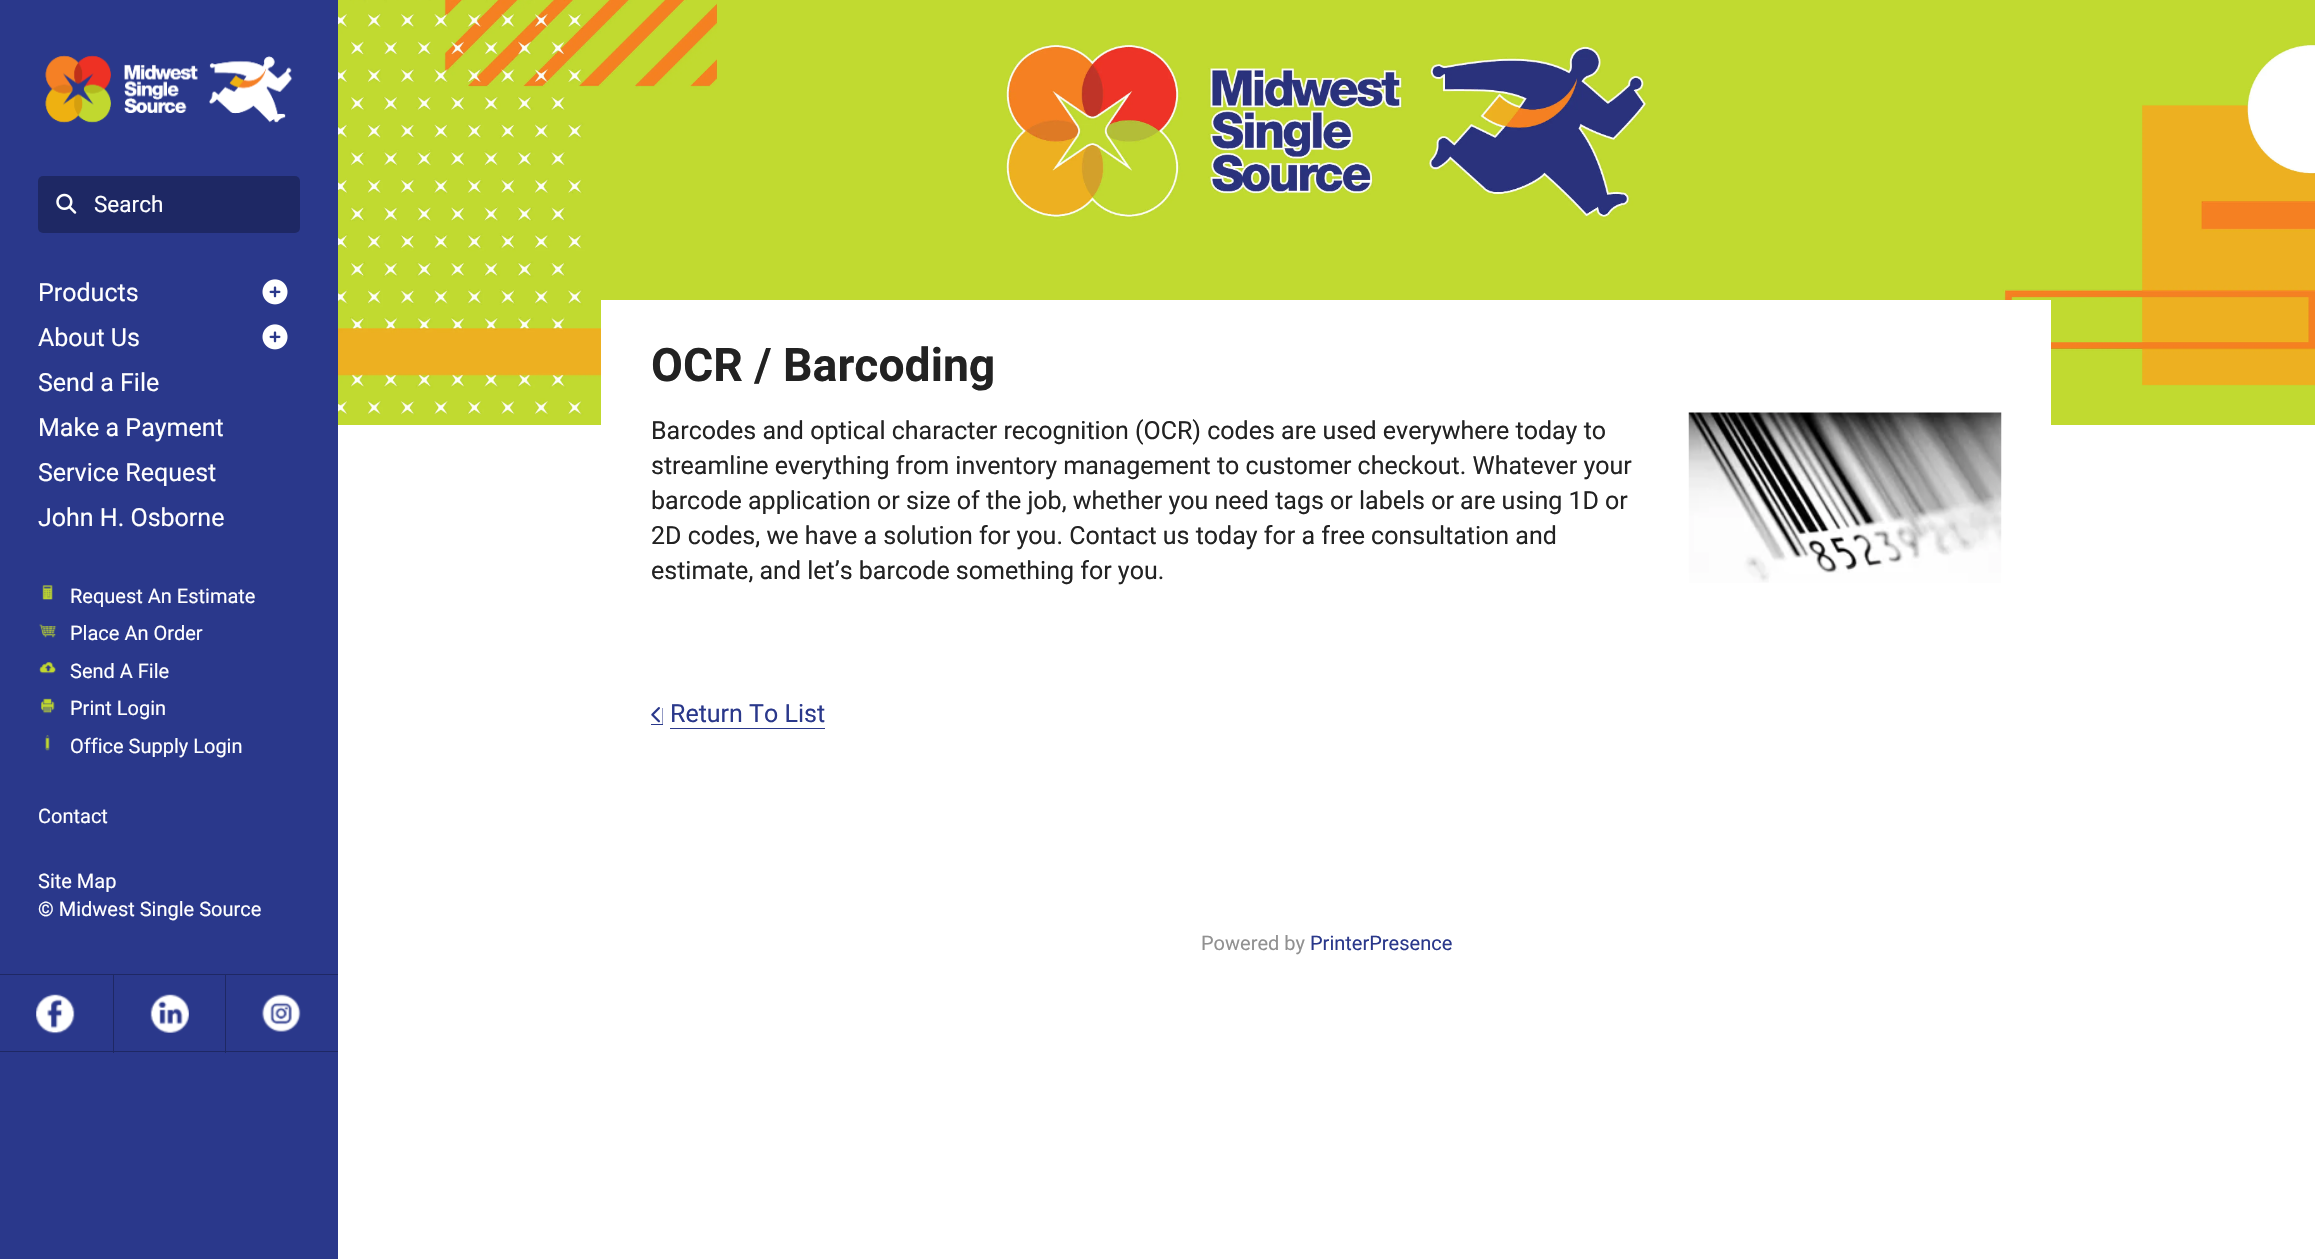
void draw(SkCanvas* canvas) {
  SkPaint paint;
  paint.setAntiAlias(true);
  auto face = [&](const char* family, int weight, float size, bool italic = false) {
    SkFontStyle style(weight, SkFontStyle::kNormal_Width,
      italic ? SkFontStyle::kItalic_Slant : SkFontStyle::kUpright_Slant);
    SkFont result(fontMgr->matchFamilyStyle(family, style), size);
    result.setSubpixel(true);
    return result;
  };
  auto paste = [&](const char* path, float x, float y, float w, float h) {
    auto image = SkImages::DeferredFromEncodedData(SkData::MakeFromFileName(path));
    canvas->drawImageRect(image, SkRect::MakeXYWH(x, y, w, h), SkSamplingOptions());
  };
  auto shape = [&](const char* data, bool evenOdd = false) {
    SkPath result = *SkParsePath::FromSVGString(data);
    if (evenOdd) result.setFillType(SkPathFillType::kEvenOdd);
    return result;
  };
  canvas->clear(0xffffffff);
  paint.setColor(0xff2a388b);
  canvas->drawRect(SkRect::MakeXYWH(0, 0, 338, 1259), paint);
  paste("img/1.png", 45, 55, 248, 68);
  paint.setColor(0xff1e2864);
  canvas->drawRoundRect(SkRect::MakeXYWH(38, 176, 262, 57), 5, 5, paint);
  paste("img/2.png", 56, 193, 21, 21);
  paste("img/3.png", 262, 279, 26, 26);
  paste("img/3.png", 262, 324, 26, 26);
  paste("img/4.png", 42, 585, 11, 15);
  paste("img/5.png", 39, 624, 18, 14);
  paste("img/6.png", 39, 662, 17, 12);
  paste("img/7.png", 41, 698, 14, 16);
  paste("img/8.png", 45, 735, 5, 16);
  canvas->drawRect(SkRect::MakeXYWH(0, 974, 338, 1), paint);
  canvas->drawRect(SkRect::MakeXYWH(0, 1051, 338, 1), paint);
  paste("img/9.png", 36, 994, 39, 40);
  canvas->drawRect(SkRect::MakeXYWH(113, 974, 1, 79), paint);
  paste("img/10.png", 150, 994, 39, 39);
  canvas->drawRect(SkRect::MakeXYWH(225, 974, 1, 79), paint);
  paste("img/11.png", 261, 994, 40, 38);
  paste("img/12.png", 338, 0, 1977, 425);
  paint.setColor(0xffffffff);
  canvas->drawRect(SkRect::MakeXYWH(601, 300, 1450, 125), paint);
  paste("img/13.png", 1688, 412, 314, 171);
  paint.setColor(0xff2a388b);
  canvas->drawPath(shape("M651 708V725H663V708H662.5V724H651Z"), paint);
  canvas->drawRect(SkRect::MakeXYWH(670, 728, 155, 1), paint);
  paste("img/14.png", 651, 707, 9, 16);
  auto f0 = face("Roboto", 400, 22.5f);
  paint.setColor(0xffffffff);
  canvas->drawString("Search", 94, 212, f0, paint);
  auto f1 = face("Roboto", 400, 25);
  {
    const struct { const char* s; float x, y; } items[] = {
      {"Products", 38, 301},
      {"About Us", 38, 346},
      {"Send a File", 38, 391},
      {"Make a Payment", 38, 436},
      {"Service Request", 38, 481},
      {"John H. Osborne", 38, 526},
    };
    for (auto [s, x, y] : items) {
      canvas->drawString(s, x, y, f1, paint);
    }
  }
  auto f2 = face("Roboto", 400, 20);
  {
    const struct { const char* s; float x, y; } items[] = {
      {"Request An Estimate", 70, 603},
      {"Place An Order", 70, 640},
      {"Send A File", 70, 678},
      {"Print Login", 70, 715},
      {"Office Supply Login", 70, 753},
      {"Contact", 38, 823},
      {"Site Map", 38, 888},
      {"© Midwest Single Source", 38, 916},
    };
    for (auto [s, x, y] : items) {
      canvas->drawString(s, x, y, f2, paint);
    }
  }
  auto f3 = face("Roboto", 700, 46.25f);
  paint.setColor(0xff222222);
  canvas->drawString("OCR / Barcoding", 651, 381, f3, paint);
  {
    const struct { const char* s; float x, y; } items[] = {
      {"Barcodes and optical character recognition (OCR) codes are used everywhere today to", 651, 439},
      {"streamline everything from inventory management to customer checkout. Whatever your", 651, 474},
      {"barcode application or size of the job, whether you need tags or labels or are using 1D or", 651, 509},
      {"2D codes, we have a solution for you. Contact us today for a free consultation and", 651, 544},
      {"estimate, and let’s barcode something for you.", 651, 579},
    };
    for (auto [s, x, y] : items) {
      canvas->drawString(s, x, y, f1, paint);
    }
  }
  paint.setColor(0xff2a388b);
  canvas->drawString("Return To List", 670, 722, f1, paint);
  paint.setColor(0xff919191);
  canvas->drawString("Powered by", 1201, 950, f2, paint);
  paint.setColor(0xff2a388b);
  canvas->drawString("PrinterPresence", 1310, 950, f2, paint);
}
